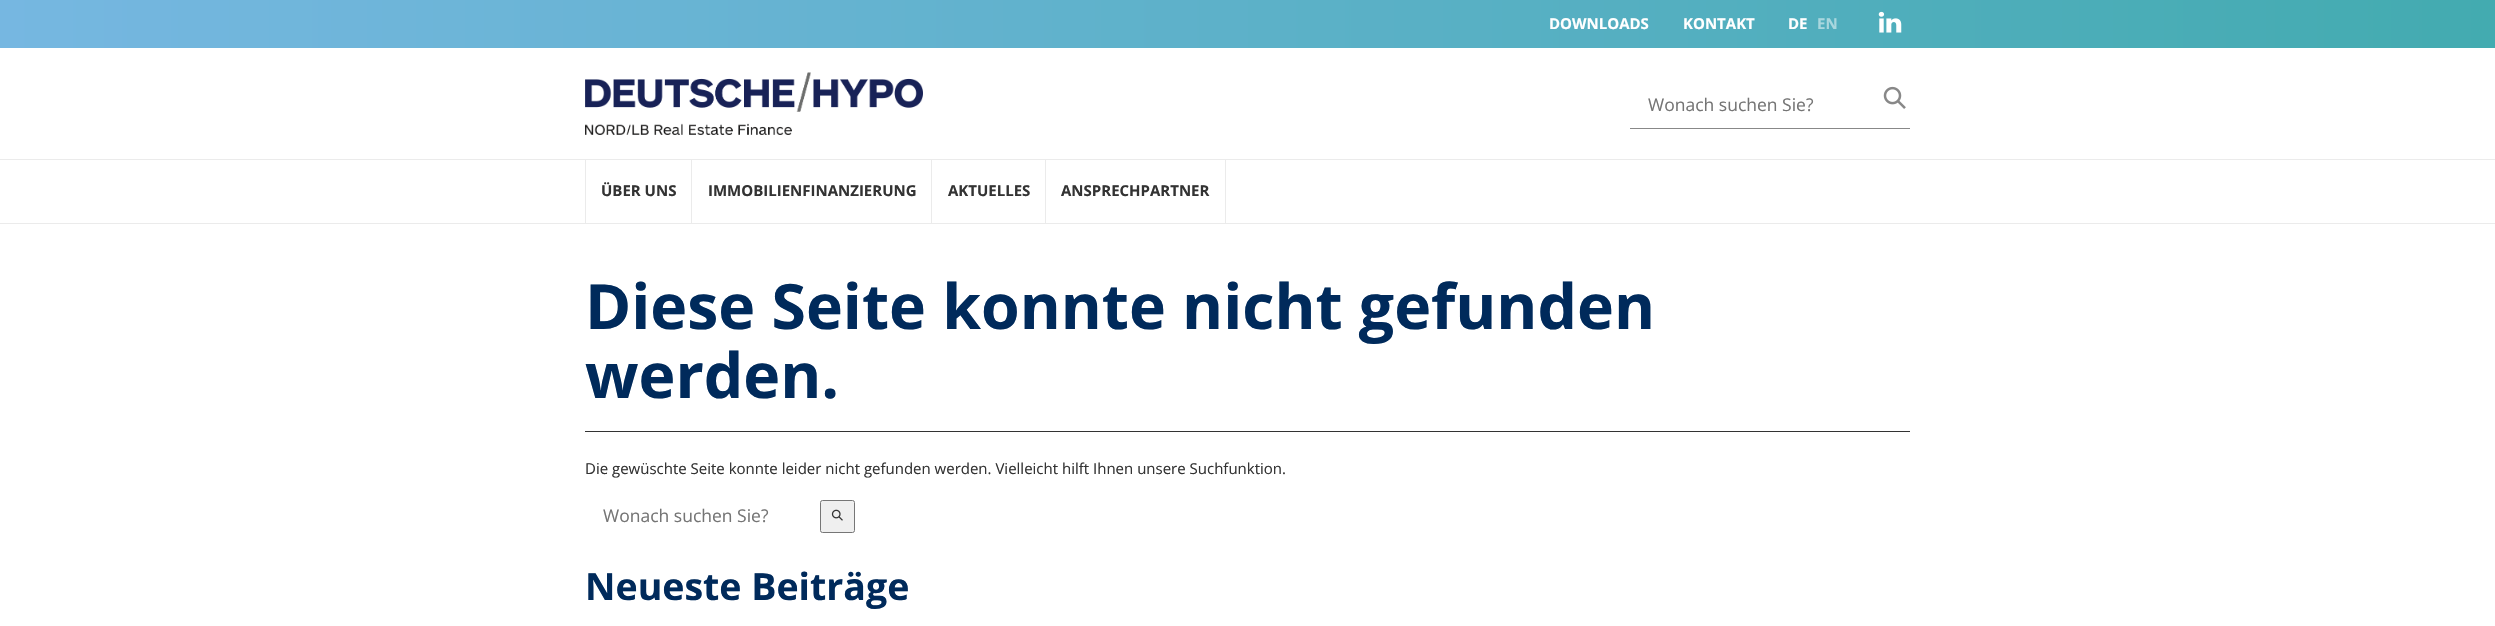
void draw(SkCanvas* canvas) {
  SkPaint paint;
  paint.setAntiAlias(true);
  auto face = [&](const char* family, int weight, float size, bool italic = false) {
    SkFontStyle style(weight, SkFontStyle::kNormal_Width,
      italic ? SkFontStyle::kItalic_Slant : SkFontStyle::kUpright_Slant);
    SkFont result(fontMgr->matchFamilyStyle(family, style), size);
    result.setSubpixel(true);
    return result;
  };
  auto paste = [&](const char* path, float x, float y, float w, float h) {
    auto image = SkImages::DeferredFromEncodedData(SkData::MakeFromFileName(path));
    canvas->drawImageRect(image, SkRect::MakeXYWH(x, y, w, h), SkSamplingOptions());
  };
  canvas->clear(0xffffffff);
  {
    const SkColor colors[] = {0xff76b7e1, 0xff43abb0};
    const float stops[] = {0, 1};
    const SkPoint ends[] = {{0, 24}, {2495, 24}};
    paint.setShader(SkGradientShader::MakeLinear(ends, colors, stops, 2, SkTileMode::kClamp));
    paint.setAlpha(255);
  }
  canvas->drawRect(SkRect::MakeXYWH(0, 0, 2495, 48), paint);
  paste("img/1.png", 1878, 11, 24, 22);
  paint.setShader(nullptr);
  paint.setColor(0xffebebeb);
  canvas->drawRect(SkRect::MakeXYWH(0, 159, 2495, 1), paint);
  paste("img/2.png", 585, 72, 338, 63);
  paint.setColor(0xff888888);
  canvas->drawRect(SkRect::MakeXYWH(1630, 128, 280, 1), paint);
  paste("img/3.png", 1883, 86, 23, 23);
  {
    const struct { float x, y, w, h; SkColor color; } items[] = {
      {0, 223, 2495, 1, 0xffebebeb},
      {585, 160, 1, 63, 0xffebebeb},
      {691, 160, 1, 63, 0xffebebeb},
      {931, 160, 1, 63, 0xffebebeb},
      {1225, 160, 1, 63, 0xffebebeb},
      {1045, 160, 1, 63, 0xffebebeb},
      {585, 431, 1325, 1, 0xff333333},
    };
    for (auto [x, y, w, h, color] : items) {
      paint.setColor(color);
      canvas->drawRect(SkRect::MakeXYWH(x, y, w, h), paint);
    }
  }
  paint.setColor(0xffefefef);
  canvas->drawRoundRect(SkRect::MakeXYWH(820.5f, 500.5f, 34, 32), 2, 2, paint);
  paint.setStroke(true);
  paint.setStrokeWidth(1);
  paint.setColor(0xff767676);
  canvas->drawRoundRect(SkRect::MakeXYWH(820.5f, 500.5f, 34, 32), 2, 2, paint);
  paste("img/4.png", 831, 509, 12, 12);
  auto f0 = face("Open Sans", 700, 15);
  paint.setStroke(false);
  paint.setColor(0xffffffff);
  {
    const struct { const char* s; float x, y; } items[] = {
      {"DOWNLOADS", 1549, 29},
      {"KONTAKT", 1683, 29},
      {"DE", 1788, 29},
    };
    for (auto [s, x, y] : items) {
      canvas->drawString(s, x, y, f0, paint);
    }
  }
  paint.setColor(0xffa8d7de);
  canvas->drawString("EN", 1817, 29, f0, paint);
  auto f1 = face("Open Sans", 400, 17.5f);
  paint.setColor(0xff757575);
  canvas->drawString("Wonach suchen Sie?", 1648, 111, f1, paint);
  paint.setColor(0xff333333);
  {
    const struct { const char* s; float x, y; } items[] = {
      {"ÜBER UNS", 601, 196},
      {"IMMOBILIENFINANZIERUNG", 708, 196},
      {"AKTUELLES", 948, 196},
      {"ANSPRECHPARTNER", 1061, 196},
    };
    for (auto [s, x, y] : items) {
      canvas->drawString(s, x, y, f0, paint);
    }
  }
  auto f2 = face("Open Sans", 700, 62.5f);
  paint.setColor(0xff002a5b);
  canvas->drawString("Diese Seite konnte nicht gefunden", 585, 329, f2, paint);
  canvas->drawString("werden.", 585, 398, f2, paint);
  auto f3 = face("Open Sans", 400, 15);
  paint.setColor(0xff333333);
  canvas->drawString("Die gewüschte Seite konnte leider nicht gefunden werden. Vielleicht hilft Ihnen unsere Suchfunktion.", 585, 474, f3, paint);
  paint.setColor(0xff757575);
  canvas->drawString("Wonach suchen Sie?", 603, 522, f1, paint);
  auto f4 = face("Open Sans", 700, 37.5f);
  paint.setColor(0xff002a5b);
  canvas->drawString("Neueste Beiträge", 585, 600, f4, paint);
}
